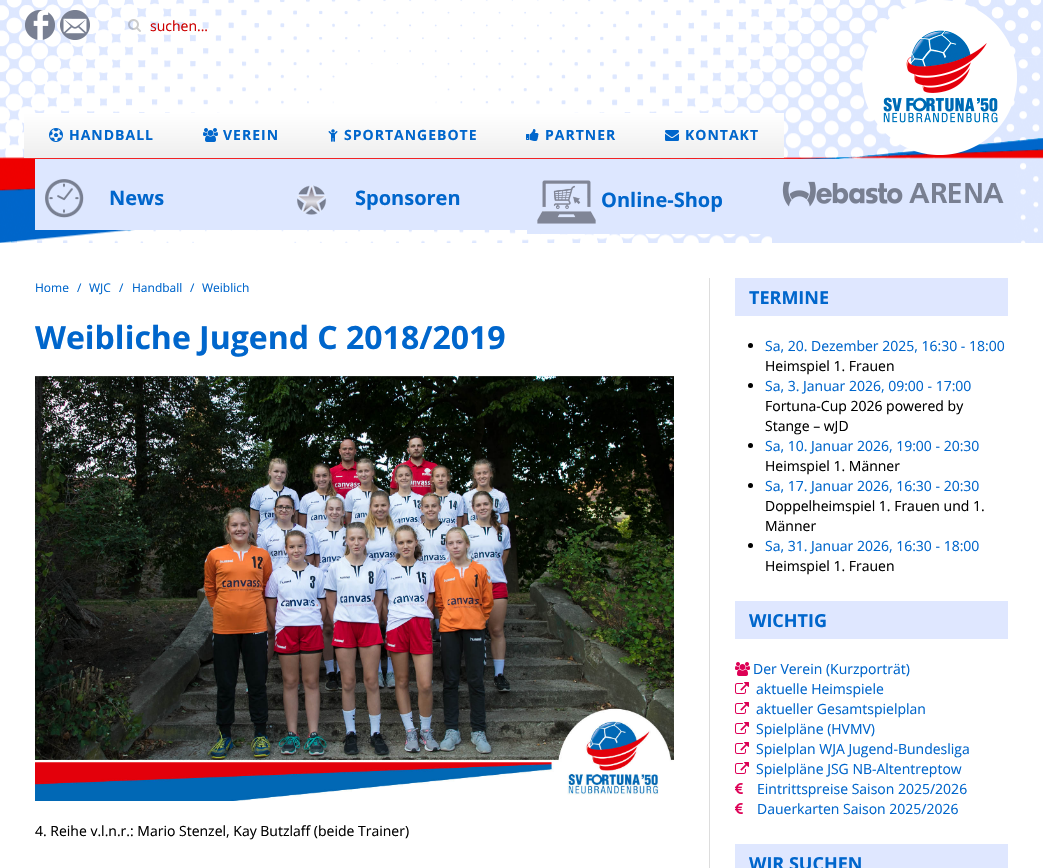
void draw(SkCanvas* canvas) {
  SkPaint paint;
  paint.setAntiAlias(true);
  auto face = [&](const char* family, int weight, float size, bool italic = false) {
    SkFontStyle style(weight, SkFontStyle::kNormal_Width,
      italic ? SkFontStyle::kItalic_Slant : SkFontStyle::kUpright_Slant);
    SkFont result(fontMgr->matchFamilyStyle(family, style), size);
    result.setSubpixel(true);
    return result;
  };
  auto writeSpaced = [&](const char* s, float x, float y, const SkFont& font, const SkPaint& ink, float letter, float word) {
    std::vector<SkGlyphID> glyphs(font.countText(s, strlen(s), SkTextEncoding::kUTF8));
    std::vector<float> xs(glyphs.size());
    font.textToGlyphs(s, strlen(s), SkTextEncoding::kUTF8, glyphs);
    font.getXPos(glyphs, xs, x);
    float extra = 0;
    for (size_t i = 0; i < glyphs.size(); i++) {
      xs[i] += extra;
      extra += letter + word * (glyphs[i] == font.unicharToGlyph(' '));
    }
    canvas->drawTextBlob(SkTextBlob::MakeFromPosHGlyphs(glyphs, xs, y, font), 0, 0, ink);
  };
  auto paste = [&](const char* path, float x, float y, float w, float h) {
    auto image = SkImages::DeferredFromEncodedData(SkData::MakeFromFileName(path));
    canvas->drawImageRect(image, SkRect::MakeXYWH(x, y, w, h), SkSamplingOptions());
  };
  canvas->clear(0xffffffff);
  paste("img/1.png", 0, 0, 1043, 243);
  paste("img/2.png", 25, 10, 30, 30);
  paste("img/3.png", 60, 10, 30, 30);
  paste("img/4.png", 128, 19, 13, 13);
  paste("img/5.png", 862, 0, 155, 155);
  {
    const SkColor colors[] = {0xffffffff, 0xffeeeeee};
    const float stops[] = {0, 1};
    const SkPoint ends[] = {{102, 113}, {102, 158}};
    paint.setShader(SkGradientShader::MakeLinear(ends, colors, stops, 2, SkTileMode::kClamp));
    paint.setAlpha(255);
  }
  canvas->drawRect(SkRect::MakeXYWH(24, 113, 154, 45), paint);
  paste("img/6.png", 49, 128, 14, 14);
  {
    const SkColor colors[] = {0xffffffff, 0xffeeeeee};
    const float stops[] = {0, 1};
    const SkPoint ends[] = {{241, 113}, {241, 158}};
    paint.setShader(SkGradientShader::MakeLinear(ends, colors, stops, 2, SkTileMode::kClamp));
    paint.setAlpha(255);
  }
  canvas->drawRect(SkRect::MakeXYWH(178, 113, 125, 45), paint);
  paste("img/7.png", 203, 128, 15, 14);
  {
    const SkColor colors[] = {0xffffffff, 0xffeeeeee};
    const float stops[] = {0, 1};
    const SkPoint ends[] = {{403, 113}, {403, 158}};
    paint.setShader(SkGradientShader::MakeLinear(ends, colors, stops, 2, SkTileMode::kClamp));
    paint.setAlpha(255);
  }
  canvas->drawRect(SkRect::MakeXYWH(303, 113, 198, 45), paint);
  paste("img/8.png", 328, 129, 10, 13);
  {
    const SkColor colors[] = {0xffffffff, 0xffeeeeee};
    const float stops[] = {0, 1};
    const SkPoint ends[] = {{571, 113}, {571, 158}};
    paint.setShader(SkGradientShader::MakeLinear(ends, colors, stops, 2, SkTileMode::kClamp));
    paint.setAlpha(255);
  }
  canvas->drawRect(SkRect::MakeXYWH(501, 113, 139, 45), paint);
  paste("img/9.png", 526, 129, 13, 12);
  {
    const SkColor colors[] = {0xffffffff, 0xffeeeeee};
    const float stops[] = {0, 1};
    const SkPoint ends[] = {{712, 113}, {712, 158}};
    paint.setShader(SkGradientShader::MakeLinear(ends, colors, stops, 2, SkTileMode::kClamp));
    paint.setAlpha(255);
  }
  canvas->drawRect(SkRect::MakeXYWH(640, 113, 144, 45), paint);
  paste("img/10.png", 665, 130, 14, 11);
  paint.setShader(nullptr);
  paint.setColor(0xffdde7ff);
  canvas->drawRect(SkRect::MakeXYWH(35, 159, 492, 71), paint);
  paste("img/11.png", 45, 179, 39, 39);
  paste("img/12.png", 297, 185, 30, 30);
  canvas->drawRect(SkRect::MakeXYWH(527, 159, 245, 75), paint);
  paste("img/13.png", 537, 180, 59, 44);
  canvas->drawRect(SkRect::MakeXYWH(772, 159, 242, 84), paint);
  paste("img/14.png", 782, 181, 222, 26);
  paste("img/15.png", 35, 376, 639, 425);
  paint.setColor(0xffdddddd);
  canvas->drawRect(SkRect::MakeXYWH(709, 278, 1, 590), paint);
  paint.setColor(0xffdfe7ff);
  canvas->drawRect(SkRect::MakeXYWH(735, 278, 273, 38), paint);
  paint.setColor(0xff000000);
  canvas->drawCircle(750.5f, 345.5f, 2.5f, paint);
  canvas->drawCircle(750.5f, 385.5f, 2.5f, paint);
  canvas->drawCircle(750.5f, 445.5f, 2.5f, paint);
  canvas->drawCircle(750.5f, 485.5f, 2.5f, paint);
  canvas->drawCircle(750.5f, 545.5f, 2.5f, paint);
  paint.setColor(0xffdfe7ff);
  canvas->drawRect(SkRect::MakeXYWH(735, 601, 273, 38), paint);
  paste("img/16.png", 735, 662, 15, 14);
  paste("img/17.png", 735, 682, 14, 12);
  paste("img/17.png", 735, 702, 14, 12);
  paste("img/17.png", 735, 722, 14, 12);
  paste("img/17.png", 735, 742, 14, 12);
  paste("img/17.png", 735, 762, 14, 12);
  paste("img/18.png", 735, 783, 8, 11);
  paste("img/18.png", 735, 803, 8, 11);
  canvas->drawRect(SkRect::MakeXYWH(735, 844, 273, 24), paint);
  auto f0 = face("Open Sans", 400, 14);
  paint.setColor(0xffcc0000);
  canvas->drawString("suchen...", 150, 31, f0, paint);
  auto f1 = face("Open Sans", 700, 14);
  paint.setColor(0xff0066cc);
  {
    const struct { const char* s; float x, y; } items[] = {
      {"HANDBALL", 69, 140},
      {"VEREIN", 223, 140},
      {"SPORTANGEBOTE", 344, 140},
      {"PARTNER", 545, 140},
      {"KONTAKT", 685, 140},
    };
    for (auto [s, x, y] : items) {
      writeSpaced(s, x, y, f1, paint, 1, 0);
    }
  }
  auto f2 = face("Open Sans", 700, 20);
  {
    const struct { const char* s; float x, y; } items[] = {
      {"News", 109, 205},
      {"Sponsoren", 355, 205},
      {"Online-Shop", 601, 207},
    };
    for (auto [s, x, y] : items) {
      canvas->drawString(s, x, y, f2, paint);
    }
  }
  auto f3 = face("Open Sans", 400, 12);
  {
    const struct { const char* s; float x, y; } items[] = {
      {"Home", 35, 292},
      {"/", 77, 292},
      {"WJC", 89, 292},
      {"/", 119, 292},
      {"Handball", 132, 292},
      {"/", 190, 292},
      {"Weiblich", 202, 292},
    };
    for (auto [s, x, y] : items) {
      canvas->drawString(s, x, y, f3, paint);
    }
  }
  auto f4 = face("Open Sans", 700, 32);
  canvas->drawString("Weibliche Jugend C 2018/2019", 35, 349, f4, paint);
  paint.setColor(0xff000000);
  canvas->drawString("4. Reihe v.l.n.r.: Mario Stenzel, Kay Butzlaff (beide Trainer)", 35, 836, f0, paint);
  auto f5 = face("Open Sans", 700, 18);
  paint.setColor(0xff0066cc);
  canvas->drawString("TERMINE", 749, 304, f5, paint);
  canvas->drawString("Sa, 20. Dezember 2025, 16:30 - 18:00", 765, 351, f0, paint);
  paint.setColor(0xff000000);
  canvas->drawString("Heimspiel 1. Frauen", 765, 371, f0, paint);
  paint.setColor(0xff0066cc);
  canvas->drawString("Sa, 3. Januar 2026, 09:00 - 17:00", 765, 391, f0, paint);
  paint.setColor(0xff000000);
  canvas->drawString("Fortuna-Cup 2026 powered by", 765, 411, f0, paint);
  canvas->drawString("Stange – wJD", 765, 431, f0, paint);
  paint.setColor(0xff0066cc);
  canvas->drawString("Sa, 10. Januar 2026, 19:00 - 20:30", 765, 451, f0, paint);
  paint.setColor(0xff000000);
  canvas->drawString("Heimspiel 1. Männer", 765, 471, f0, paint);
  paint.setColor(0xff0066cc);
  canvas->drawString("Sa, 17. Januar 2026, 16:30 - 20:30", 765, 491, f0, paint);
  paint.setColor(0xff000000);
  canvas->drawString("Doppelheimspiel 1. Frauen und 1.", 765, 511, f0, paint);
  canvas->drawString("Männer", 765, 531, f0, paint);
  paint.setColor(0xff0066cc);
  canvas->drawString("Sa, 31. Januar 2026, 16:30 - 18:00", 765, 551, f0, paint);
  paint.setColor(0xff000000);
  canvas->drawString("Heimspiel 1. Frauen", 765, 571, f0, paint);
  paint.setColor(0xff0066cc);
  canvas->drawString("WICHTIG", 749, 627, f5, paint);
  {
    const struct { const char* s; float x, y; } items[] = {
      {"Der Verein (Kurzporträt)", 753, 674},
      {"aktuelle Heimspiele", 756, 694},
      {"aktueller Gesamtspielplan", 756, 714},
      {"Spielpläne (HVMV)", 756, 734},
      {"Spielplan WJA Jugend-Bundesliga", 756, 754},
      {"Spielpläne JSG NB-Altentreptow", 756, 774},
      {"Eintrittspreise Saison 2025/2026", 757, 794},
      {"Dauerkarten Saison 2025/2026", 757, 814},
    };
    for (auto [s, x, y] : items) {
      canvas->drawString(s, x, y, f0, paint);
    }
  }
  canvas->drawString("WIR SUCHEN", 749, 870, f5, paint);
}
